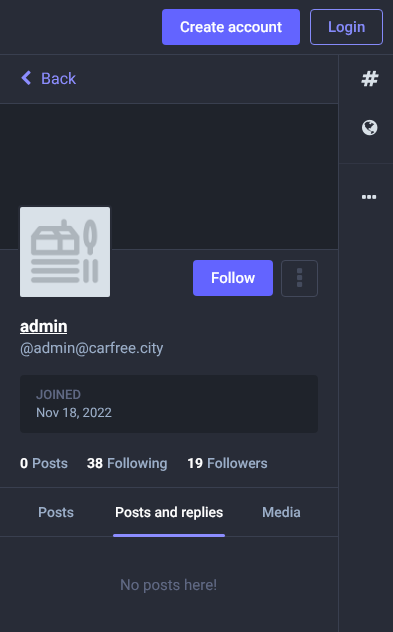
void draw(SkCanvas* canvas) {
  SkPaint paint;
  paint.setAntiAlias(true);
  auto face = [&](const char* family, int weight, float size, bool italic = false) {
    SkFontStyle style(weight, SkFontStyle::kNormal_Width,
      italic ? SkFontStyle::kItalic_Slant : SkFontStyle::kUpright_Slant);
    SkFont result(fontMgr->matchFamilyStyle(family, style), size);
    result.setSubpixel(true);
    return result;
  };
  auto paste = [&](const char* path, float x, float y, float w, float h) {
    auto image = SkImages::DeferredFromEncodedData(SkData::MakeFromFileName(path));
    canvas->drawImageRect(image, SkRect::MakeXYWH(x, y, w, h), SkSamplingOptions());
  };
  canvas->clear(0xff282c37);
  paint.setColor(0xff393f4f);
  canvas->drawRect(SkRect::MakeXYWH(0, 54, 393, 1), paint);
  paint.setColor(0xff6364ff);
  canvas->drawRoundRect(SkRect::MakeXYWH(162, 9, 138, 36), 4, 4, paint);
  paint.setStroke(true);
  paint.setStrokeWidth(1);
  paint.setColor(0xff858afa);
  canvas->drawRoundRect(SkRect::MakeXYWH(310.5f, 9.5f, 72, 35), 3.5f, 3.5f, paint);
  paint.setStroke(false);
  paint.setColor(0xff393f4f);
  canvas->drawRect(SkRect::MakeXYWH(0, 103, 338, 1), paint);
  paste("img/1.png", 21, 70, 10, 15);
  {
    const struct { float x, y, w, h; SkColor color; } items[] = {
      {0, 104, 338, 145, 0xff1f232b},
      {0, 249, 338, 1, 0xff393f4f},
      {0, 487, 338, 1, 0xff393f4f},
    };
    for (auto [x, y, w, h, color] : items) {
      paint.setColor(color);
      canvas->drawRect(SkRect::MakeXYWH(x, y, w, h), paint);
    }
  }
  paint.setStroke(true);
  paint.setStrokeWidth(2);
  paint.setColor(0xff282c37);
  canvas->drawRoundRect(SkRect::MakeXYWH(19, 206, 92, 92), 3, 3, paint);
  paste("img/2.png", 20, 207, 90, 90);
  paint.setStroke(false);
  paint.setColor(0xff6364ff);
  canvas->drawRoundRect(SkRect::MakeXYWH(193, 260, 80, 36), 4, 4, paint);
  paint.setStroke(true);
  paint.setStrokeWidth(1);
  paint.setColor(0xff42485a);
  canvas->drawRoundRect(SkRect::MakeXYWH(281.5f, 260.5f, 36, 36), 3.5f, 3.5f, paint);
  paste("img/3.png", 297, 268, 6, 19);
  paint.setStroke(false);
  paint.setColor(0xffffffff);
  canvas->drawRect(SkRect::MakeXYWH(20, 333, 47, 1), paint);
  paint.setColor(0xff1f232b);
  canvas->drawRoundRect(SkRect::MakeXYWH(20, 375, 298, 58), 4, 4, paint);
  paint.setColor(0xff393f4f);
  canvas->drawRect(SkRect::MakeXYWH(0, 536, 338, 1), paint);
  paint.setColor(0xff8c8dff);
  canvas->drawRoundRect(SkRect::MakeXYWH(113, 534, 112, 3), 1.5f, 1.5f, paint);
  paint.setColor(0xff393f4f);
  canvas->drawRect(SkRect::MakeXYWH(338, 55, 1, 577), paint);
  paste("img/4.png", 361, 70, 18, 17);
  paste("img/5.png", 362, 119, 16, 17);
  paint.setColor(0xff313543);
  canvas->drawRect(SkRect::MakeXYWH(339, 163, 54, 1), paint);
  paste("img/6.png", 362, 195, 15, 4);
  auto f0 = face("Roboto", 500, 15);
  paint.setColor(0xffffffff);
  canvas->drawString("Create account", 180, 32, f0, paint);
  paint.setColor(0xff858afa);
  canvas->drawString("Login", 328, 32, f0, paint);
  auto f1 = face("Roboto", 400, 16);
  paint.setColor(0xff8c8dff);
  canvas->drawString("Back", 41, 84, f1, paint);
  paint.setColor(0xffffffff);
  canvas->drawString("Follow", 211, 283, f0, paint);
  auto f2 = face("Roboto", 700, 17);
  canvas->drawString("admin", 20, 332, f2, paint);
  auto f3 = face("Roboto", 400, 15);
  paint.setColor(0xff9baec8);
  canvas->drawString("@admin@carfree.city", 20, 353, f3, paint);
  auto f4 = face("Roboto", 500, 13);
  paint.setColor(0xff606984);
  canvas->drawString("JOINED", 36, 399, f4, paint);
  auto f5 = face("Roboto", 400, 13);
  paint.setColor(0xff9baec8);
  canvas->drawString("Nov 18, 2022", 36, 417, f5, paint);
  auto f6 = face("Roboto", 700, 14);
  paint.setColor(0xffffffff);
  canvas->drawString("0", 20, 468, f6, paint);
  auto f7 = face("Roboto", 500, 14);
  paint.setColor(0xff9baec8);
  canvas->drawString("Posts", 32, 468, f7, paint);
  paint.setColor(0xffffffff);
  canvas->drawString("38", 87, 468, f6, paint);
  paint.setColor(0xff9baec8);
  canvas->drawString("Following", 107, 468, f7, paint);
  paint.setColor(0xffffffff);
  canvas->drawString("19", 187, 468, f6, paint);
  paint.setColor(0xff9baec8);
  canvas->drawString("Followers", 207, 468, f7, paint);
  canvas->drawString("Posts", 38, 517, f7, paint);
  paint.setColor(0xffffffff);
  canvas->drawString("Posts and replies", 115, 517, f7, paint);
  paint.setColor(0xff9baec8);
  canvas->drawString("Media", 262, 517, f7, paint);
  paint.setColor(0xff606984);
  canvas->drawString("No posts here!", 120, 590, f3, paint);
}
